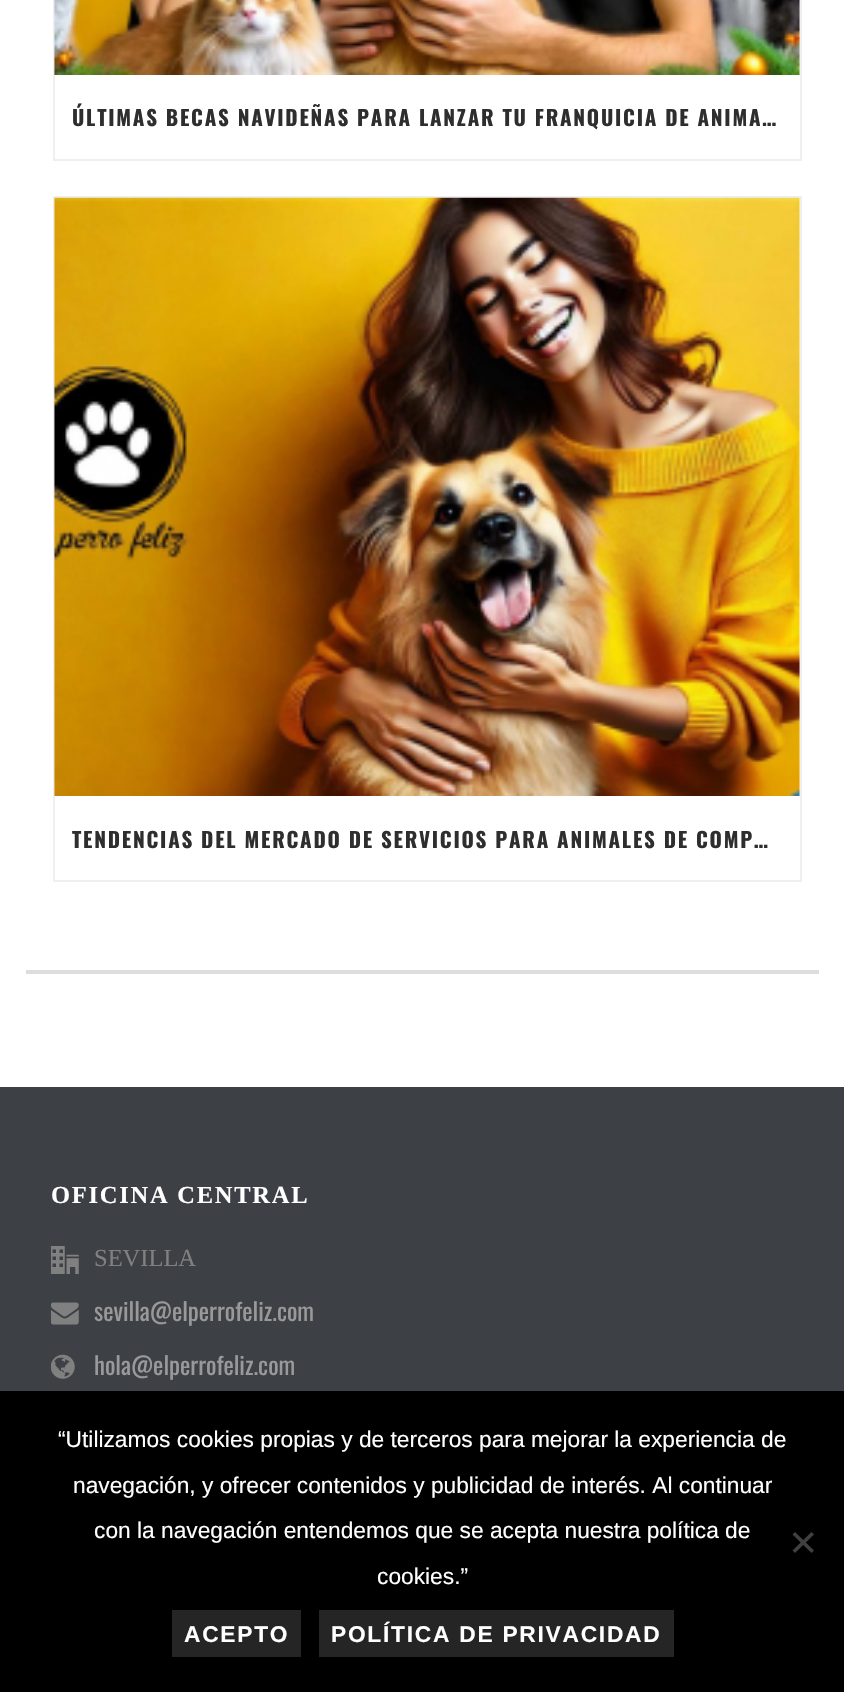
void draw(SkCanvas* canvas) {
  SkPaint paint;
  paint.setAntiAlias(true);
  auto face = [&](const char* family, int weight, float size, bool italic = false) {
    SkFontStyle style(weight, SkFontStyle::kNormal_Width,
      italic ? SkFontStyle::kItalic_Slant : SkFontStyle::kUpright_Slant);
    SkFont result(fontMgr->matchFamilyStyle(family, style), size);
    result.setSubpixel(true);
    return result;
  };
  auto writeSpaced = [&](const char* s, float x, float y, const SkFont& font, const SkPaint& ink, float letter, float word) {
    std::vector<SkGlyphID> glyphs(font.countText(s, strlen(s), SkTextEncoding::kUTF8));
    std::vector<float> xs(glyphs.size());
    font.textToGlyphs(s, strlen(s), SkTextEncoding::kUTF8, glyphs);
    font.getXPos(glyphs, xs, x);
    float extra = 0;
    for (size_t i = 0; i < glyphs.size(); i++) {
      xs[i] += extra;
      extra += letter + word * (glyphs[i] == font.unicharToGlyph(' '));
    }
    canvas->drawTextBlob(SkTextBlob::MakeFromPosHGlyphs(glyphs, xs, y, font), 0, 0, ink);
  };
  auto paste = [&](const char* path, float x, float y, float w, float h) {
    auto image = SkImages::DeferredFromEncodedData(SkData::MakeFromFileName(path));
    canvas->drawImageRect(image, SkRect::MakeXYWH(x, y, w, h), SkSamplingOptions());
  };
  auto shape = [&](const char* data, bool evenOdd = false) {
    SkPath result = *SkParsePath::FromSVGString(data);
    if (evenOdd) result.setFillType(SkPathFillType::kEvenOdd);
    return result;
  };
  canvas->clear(0xffffffff);
  paint.setColor(0xffdddddd);
  canvas->drawRect(SkRect::MakeXYWH(26, 970, 793, 4), paint);
  paint.setStroke(true);
  paint.setStrokeWidth(2);
  paint.setColor(0xffefefef);
  canvas->drawRect(SkRect::MakeXYWH(54, -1, 747, 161), paint);
  paste("img/1.png", 54, 0, 746, 75);
  canvas->drawRect(SkRect::MakeXYWH(54, 197, 747, 684), paint);
  paste("img/2.png", 54, 197, 746, 599);
  paint.setStroke(false);
  paint.setColor(0xff3d4045);
  canvas->drawRect(SkRect::MakeXYWH(0, 1087, 844, 304), paint);
  paste("img/3.png", 51, 1246, 28, 28);
  paste("img/4.png", 51, 1302, 28, 23);
  paste("img/5.png", 51, 1354, 24, 25);
  paint.setColor(0xff000000);
  canvas->drawRect(SkRect::MakeXYWH(0, 1391, 844, 301), paint);
  paint.setColor(0xff404040);
  canvas->drawPath(shape("M811.5 1532L814 1534.5L795 1553L792.5 1550.5Z"), paint);
  canvas->drawPath(shape("M792.5 1534.5L795 1532L814 1550.5L811.5 1553Z"), paint);
  paint.setColor(0xff252525);
  canvas->drawRect(SkRect::MakeXYWH(172, 1610, 129, 47), paint);
  canvas->drawRect(SkRect::MakeXYWH(319, 1610, 355, 47), paint);
  auto f0 = face("Oswald", 700, 21);
  paint.setColor(0xff2e2e2e);
  writeSpaced("ÚLTIMAS BECAS NAVIDEÑAS PARA LANZAR TU FRANQUICIA DE ANIMA…", 72, 126, f0, paint, 1.75f, 0);
  writeSpaced("TENDENCIAS DEL MERCADO DE SERVICIOS PARA ANIMALES DE COMP…", 72, 848, f0, paint, 1.75f, 0);
  auto f1 = face("Liberation Serif", 700, 24.5f);
  paint.setColor(0xffffffff);
  writeSpaced("OFICINA CENTRAL", 51, 1203, f1, paint, 1.75f, 0);
  auto f2 = face("Liberation Serif", 400, 24.5f);
  paint.setColor(0xff808080);
  canvas->drawString("SEVILLA", 94, 1266, f2, paint);
  auto f3 = face("Oswald", 400, 24.5f);
  paint.setColor(0xff999999);
  canvas->drawString("sevilla@elperrofeliz.com", 94, 1321, f3, paint);
  canvas->drawString("hola@elperrofeliz.com", 94, 1375, f3, paint);
  auto f4 = face("Liberation Sans", 400, 22.75f);
  paint.setColor(0xffffffff);
  {
    const struct { const char* s; float x, y; } items[] = {
      {"“Utilizamos cookies propias y de terceros para mejorar la experiencia de", 58, 1447},
      {"navegación, y ofrecer contenidos y publicidad de interés. Al continuar", 73, 1493},
      {"con la navegación entendemos que se acepta nuestra política de", 94, 1538},
      {"cookies.”", 377, 1584},
    };
    for (auto [s, x, y] : items) {
      canvas->drawString(s, x, y, f4, paint);
    }
  }
  auto f5 = face("Liberation Sans", 700, 22.75f);
  writeSpaced("ACEPTO", 184, 1642, f5, paint, 1.75f, 0);
  writeSpaced("POLÍTICA DE PRIVACIDAD", 331, 1642, f5, paint, 1.75f, 0);
}
